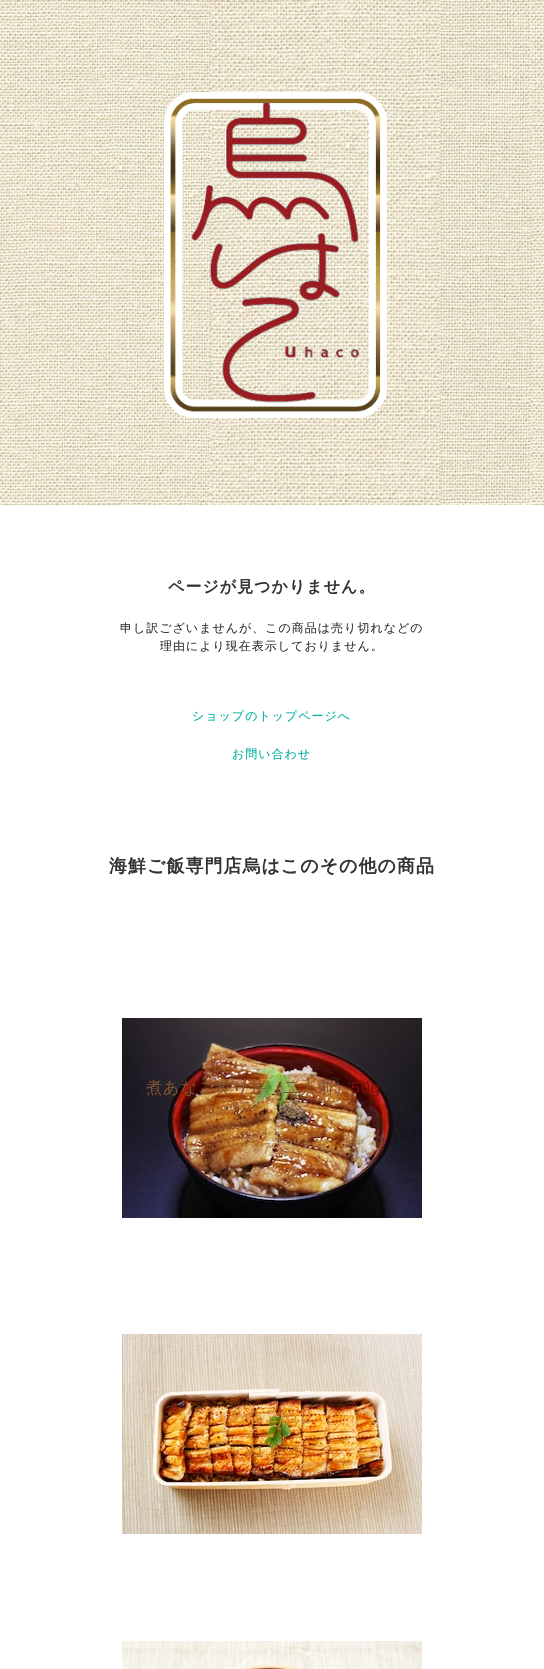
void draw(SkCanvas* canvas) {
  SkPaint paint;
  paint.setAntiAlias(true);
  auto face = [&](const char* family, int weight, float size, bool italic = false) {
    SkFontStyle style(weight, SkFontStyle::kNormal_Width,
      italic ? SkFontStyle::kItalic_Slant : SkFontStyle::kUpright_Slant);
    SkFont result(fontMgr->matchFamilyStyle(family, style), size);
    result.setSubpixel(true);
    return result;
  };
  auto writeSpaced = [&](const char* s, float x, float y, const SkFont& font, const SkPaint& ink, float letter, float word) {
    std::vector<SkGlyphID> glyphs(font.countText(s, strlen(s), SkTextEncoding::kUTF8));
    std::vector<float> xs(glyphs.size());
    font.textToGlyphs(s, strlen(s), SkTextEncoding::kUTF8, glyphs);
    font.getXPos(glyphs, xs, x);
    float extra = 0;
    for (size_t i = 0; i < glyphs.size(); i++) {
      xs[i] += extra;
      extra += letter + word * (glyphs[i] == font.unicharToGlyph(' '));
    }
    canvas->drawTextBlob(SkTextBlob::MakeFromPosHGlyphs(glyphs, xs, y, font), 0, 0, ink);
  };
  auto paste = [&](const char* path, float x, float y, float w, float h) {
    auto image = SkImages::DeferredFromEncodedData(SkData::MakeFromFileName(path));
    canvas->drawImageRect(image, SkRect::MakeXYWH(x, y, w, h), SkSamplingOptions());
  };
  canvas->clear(0xffffffff);
  paste("img/1.png", 0, 0, 544, 505);
  paste("img/2.png", 164, 92, 223, 326);
  paste("img/3.png", 122, 1018, 300, 200);
  paste("img/4.png", 122, 1334, 300, 200);
  paste("img/5.png", 122, 1641, 300, 28);
  auto f0 = face("WenQuanYi Zen Hei", 700, 16);
  paint.setColor(0xff333333);
  writeSpaced("ページが見つかりません。", 168, 592, f0, paint, 1, 0);
  auto f1 = face("WenQuanYi Zen Hei", 500, 12);
  writeSpaced("申し訳ございませんが、この商品は売り切れなどの", 120, 632, f1, paint, 1, 0);
  writeSpaced("理由により現在表示しておりません。", 160, 650, f1, paint, 1, 0);
  paint.setColor(0xff00ae9f);
  writeSpaced("ショップのトップページへ", 192, 720, f1, paint, 1, 0);
  writeSpaced("お問い合わせ", 232, 758, f1, paint, 1, 0);
  auto f2 = face("WenQuanYi Zen Hei", 700, 18);
  paint.setColor(0xff333333);
  writeSpaced("海鮮ご飯専門店烏はこのその他の商品", 109, 872, f2, paint, 1, 0);
  auto f3 = face("WenQuanYi Zen Hei", 500, 16);
  paint.setColor(0xff805431);
  writeSpaced("煮あなご炙り丼（二人前）", 146, 1093, f3, paint, 1, 0);
  auto f4 = face("Liberation Sans", 400, 16);
  paint.setColor(0xff741008);
  writeSpaced("50g", 351, 1093, f4, paint, 1, 0);
  paint.setColor(0xffbd8f5c);
  writeSpaced("¥756", 252, 1154, f4, paint, 1, 0);
  paint.setColor(0xffd88e30);
  writeSpaced("あなごめし", 229, 1421, f3, paint, 1, 0);
  paint.setColor(0xffc97a24);
  writeSpaced("¥1,674", 245, 1457, f4, paint, 1, 0);
}
